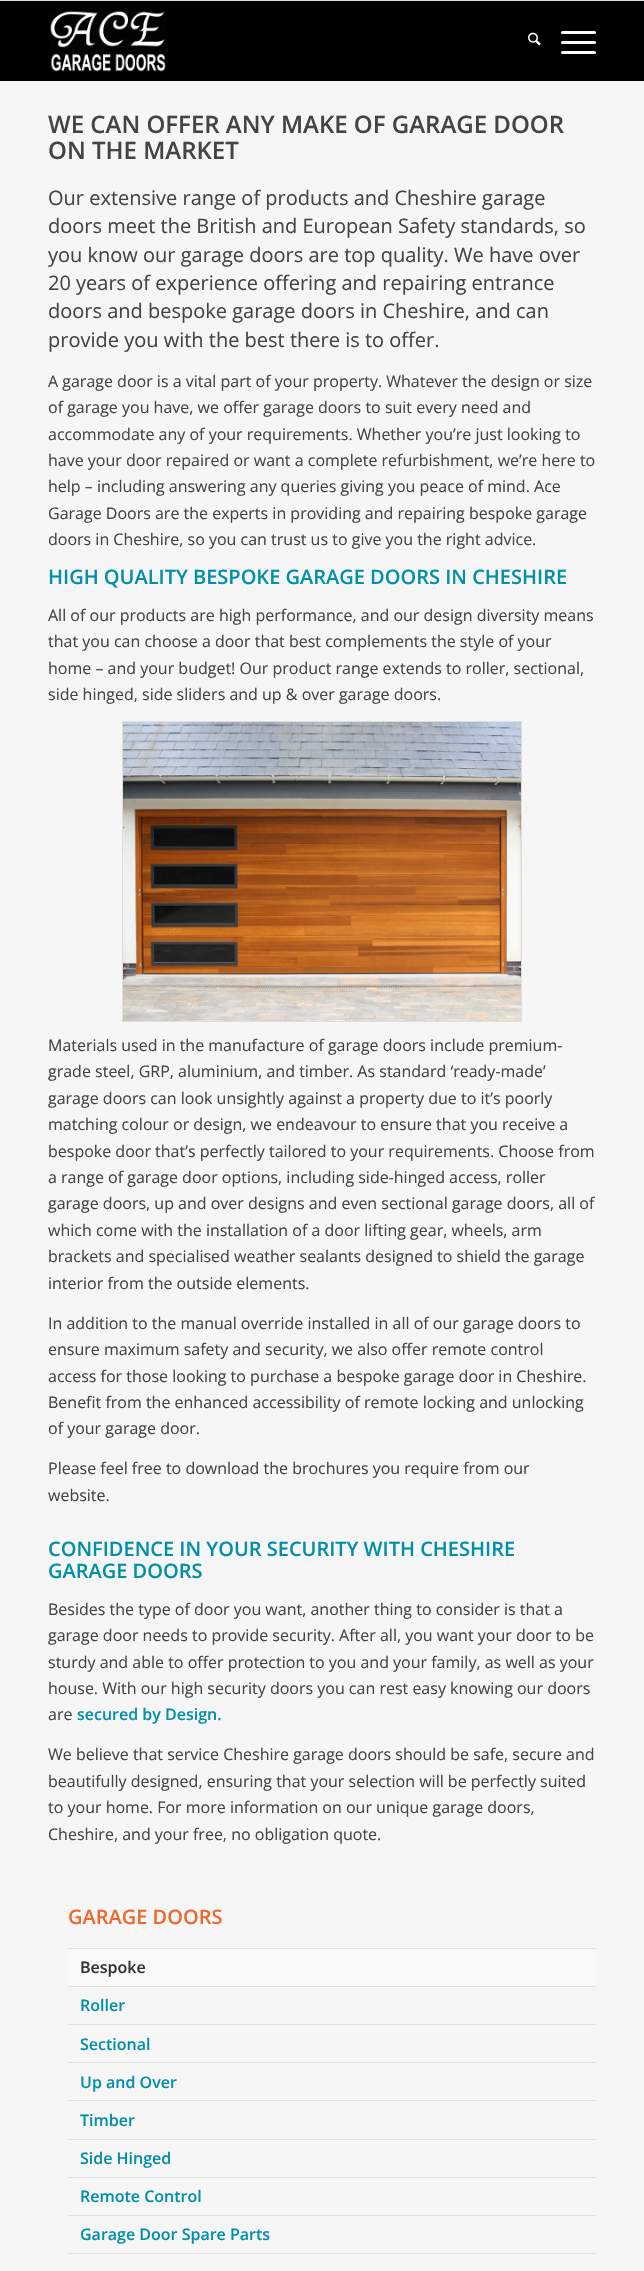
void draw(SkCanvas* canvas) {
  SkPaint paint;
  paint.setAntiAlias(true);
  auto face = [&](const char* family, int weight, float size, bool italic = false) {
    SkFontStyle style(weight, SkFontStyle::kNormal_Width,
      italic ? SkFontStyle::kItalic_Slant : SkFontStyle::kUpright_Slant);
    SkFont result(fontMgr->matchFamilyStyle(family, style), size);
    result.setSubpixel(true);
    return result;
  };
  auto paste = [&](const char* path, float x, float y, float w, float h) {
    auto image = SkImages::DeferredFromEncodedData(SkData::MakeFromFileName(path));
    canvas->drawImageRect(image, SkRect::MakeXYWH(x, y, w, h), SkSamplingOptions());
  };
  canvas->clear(0xfff6f6f6);
  paint.setColor(0xffe1e1e1);
  canvas->drawRect(SkRect::MakeXYWH(0, 0, 644, 1), paint);
  paint.setColor(0xff000000);
  canvas->drawRect(SkRect::MakeXYWH(0, 1, 644, 80), paint);
  paste("img/1.png", 50, 11, 116, 61);
  paste("img/2.png", 528, 32, 13, 14);
  paint.setColor(0xffffffff);
  canvas->drawRoundRect(SkRect::MakeXYWH(561, 41, 35, 3), 1.5f, 1.5f, paint);
  canvas->drawRoundRect(SkRect::MakeXYWH(561, 31, 35, 3), 1.5f, 1.5f, paint);
  canvas->drawRoundRect(SkRect::MakeXYWH(561, 51, 35, 3), 1.5f, 1.5f, paint);
  paint.setStroke(true);
  paint.setStrokeWidth(1);
  paint.setColor(0xffdedede);
  canvas->drawRect(SkRect::MakeXYWH(122.5f, 721.5f, 399, 300), paint);
  paste("img/3.png", 123, 722, 398, 299);
  paint.setStroke(false);
  {
    const struct { float x, y, w, h; SkColor color; } items[] = {
      {68, 1949, 528, 37, 0xfffafafa},
      {68, 1948, 528, 1, 0xffe1e1e1},
      {68, 1986, 528, 1, 0xffe1e1e1},
      {68, 2024, 528, 1, 0xffe1e1e1},
      {68, 2062, 528, 1, 0xffe1e1e1},
      {68, 2100, 528, 1, 0xffe1e1e1},
      {68, 2139, 528, 1, 0xffe1e1e1},
      {68, 2177, 528, 1, 0xffe1e1e1},
      {68, 2215, 528, 1, 0xffe1e1e1},
      {68, 2253, 528, 1, 0xffe1e1e1},
    };
    for (auto [x, y, w, h, color] : items) {
      paint.setColor(color);
      canvas->drawRect(SkRect::MakeXYWH(x, y, w, h), paint);
    }
  }
  auto f0 = face("Open Sans", 600, 24);
  paint.setColor(0xff444444);
  canvas->drawString("WE CAN OFFER ANY MAKE OF GARAGE DOOR", 48, 133, f0, paint);
  canvas->drawString("ON THE MARKET", 48, 159, f0, paint);
  auto f1 = face("Open Sans", 400, 20);
  {
    const struct { const char* s; float x, y; } items[] = {
      {"Our extensive range of products and Cheshire garage", 48, 205},
      {"doors meet the British and European Safety standards, so", 48, 233},
      {"you know our garage doors are top quality. We have over", 48, 262},
      {"20 years of experience offering and repairing entrance", 48, 290},
      {"doors and bespoke garage doors in Cheshire, and can", 48, 318},
      {"provide you with the best there is to offer.", 48, 347},
    };
    for (auto [s, x, y] : items) {
      canvas->drawString(s, x, y, f1, paint);
    }
  }
  auto f2 = face("Open Sans", 400, 16);
  {
    const struct { const char* s; float x, y; } items[] = {
      {"A garage door is a vital part of your property. Whatever the design or size", 48, 387},
      {"of garage you have, we offer garage doors to suit every need and", 48, 413},
      {"accommodate any of your requirements. Whether you’re just looking to", 48, 440},
      {"have your door repaired or want a complete refurbishment, we’re here to", 48, 466},
      {"help – including answering any queries giving you peace of mind. Ace", 48, 492},
      {"Garage Doors are the experts in providing and repairing bespoke garage", 48, 519},
      {"doors in Cheshire, so you can trust us to give you the right advice.", 48, 545},
    };
    for (auto [s, x, y] : items) {
      canvas->drawString(s, x, y, f2, paint);
    }
  }
  auto f3 = face("Open Sans", 600, 20);
  paint.setColor(0xff028fa9);
  canvas->drawString("HIGH QUALITY BESPOKE GARAGE DOORS IN CHESHIRE", 48, 584, f3, paint);
  paint.setColor(0xff444444);
  {
    const struct { const char* s; float x, y; } items[] = {
      {"All of our products are high performance, and our design diversity means", 48, 621},
      {"that you can choose a door that best complements the style of your", 48, 647},
      {"home – and your budget! Our product range extends to roller, sectional,", 48, 674},
      {"side hinged, side sliders and up & over garage doors.", 48, 700},
      {"Materials used in the manufacture of garage doors include premium-", 48, 1051},
      {"grade steel, GRP, aluminium, and timber. As standard ‘ready-made’", 48, 1077},
      {"garage doors can look unsightly against a property due to it’s poorly", 48, 1104},
      {"matching colour or design, we endeavour to ensure that you receive a", 48, 1130},
      {"bespoke door that’s perfectly tailored to your requirements. Choose from", 48, 1157},
      {"a range of garage door options, including side-hinged access, roller", 48, 1183},
      {"garage doors, up and over designs and even sectional garage doors, all of", 48, 1209},
      {"which come with the installation of a door lifting gear, wheels, arm", 48, 1236},
      {"brackets and specialised weather sealants designed to shield the garage", 48, 1262},
      {"interior from the outside elements.", 48, 1289},
      {"In addition to the manual override installed in all of our garage doors to", 48, 1329},
      {"ensure maximum safety and security, we also offer remote control", 48, 1355},
      {"access for those looking to purchase a bespoke garage door in Cheshire.", 48, 1382},
      {"Benefit from the enhanced accessibility of remote locking and unlocking", 48, 1408},
      {"of your garage door.", 48, 1434},
      {"Please feel free to download the brochures you require from our", 48, 1474},
      {"website.", 48, 1501},
    };
    for (auto [s, x, y] : items) {
      canvas->drawString(s, x, y, f2, paint);
    }
  }
  paint.setColor(0xff028fa9);
  canvas->drawString("CONFIDENCE IN YOUR SECURITY WITH CHESHIRE", 48, 1556, f3, paint);
  canvas->drawString("GARAGE DOORS", 48, 1578, f3, paint);
  paint.setColor(0xff444444);
  {
    const struct { const char* s; float x, y; } items[] = {
      {"Besides the type of door you want, another thing to consider is that a", 48, 1615},
      {"garage door needs to provide security. After all, you want your door to be", 48, 1641},
      {"sturdy and able to offer protection to you and your family, as well as your", 48, 1668},
      {"house. With our high security doors you can rest easy knowing our doors", 48, 1694},
      {"are", 48, 1720},
    };
    for (auto [s, x, y] : items) {
      canvas->drawString(s, x, y, f2, paint);
    }
  }
  auto f4 = face("Open Sans", 600, 16);
  paint.setColor(0xff028fa9);
  canvas->drawString("secured by Design.", 77, 1720, f4, paint);
  paint.setColor(0xff444444);
  {
    const struct { const char* s; float x, y; } items[] = {
      {"We believe that service Cheshire garage doors should be safe, secure and", 48, 1760},
      {"beautifully designed, ensuring that your selection will be perfectly suited", 48, 1787},
      {"to your home. For more information on our unique garage doors,", 48, 1813},
      {"Cheshire, and your free, no obligation quote.", 48, 1840},
    };
    for (auto [s, x, y] : items) {
      canvas->drawString(s, x, y, f2, paint);
    }
  }
  paint.setColor(0xffef692f);
  canvas->drawString("GARAGE DOORS", 68, 1924, f3, paint);
  paint.setColor(0xff333333);
  canvas->drawString("Bespoke", 80, 1973, f4, paint);
  paint.setColor(0xff028fa9);
  {
    const struct { const char* s; float x, y; } items[] = {
      {"Roller", 80, 2011},
      {"Sectional", 80, 2050},
      {"Up and Over", 80, 2088},
      {"Timber", 80, 2126},
      {"Side Hinged", 80, 2164},
      {"Remote Control", 80, 2202},
      {"Garage Door Spare Parts", 80, 2240},
    };
    for (auto [s, x, y] : items) {
      canvas->drawString(s, x, y, f4, paint);
    }
  }
}
